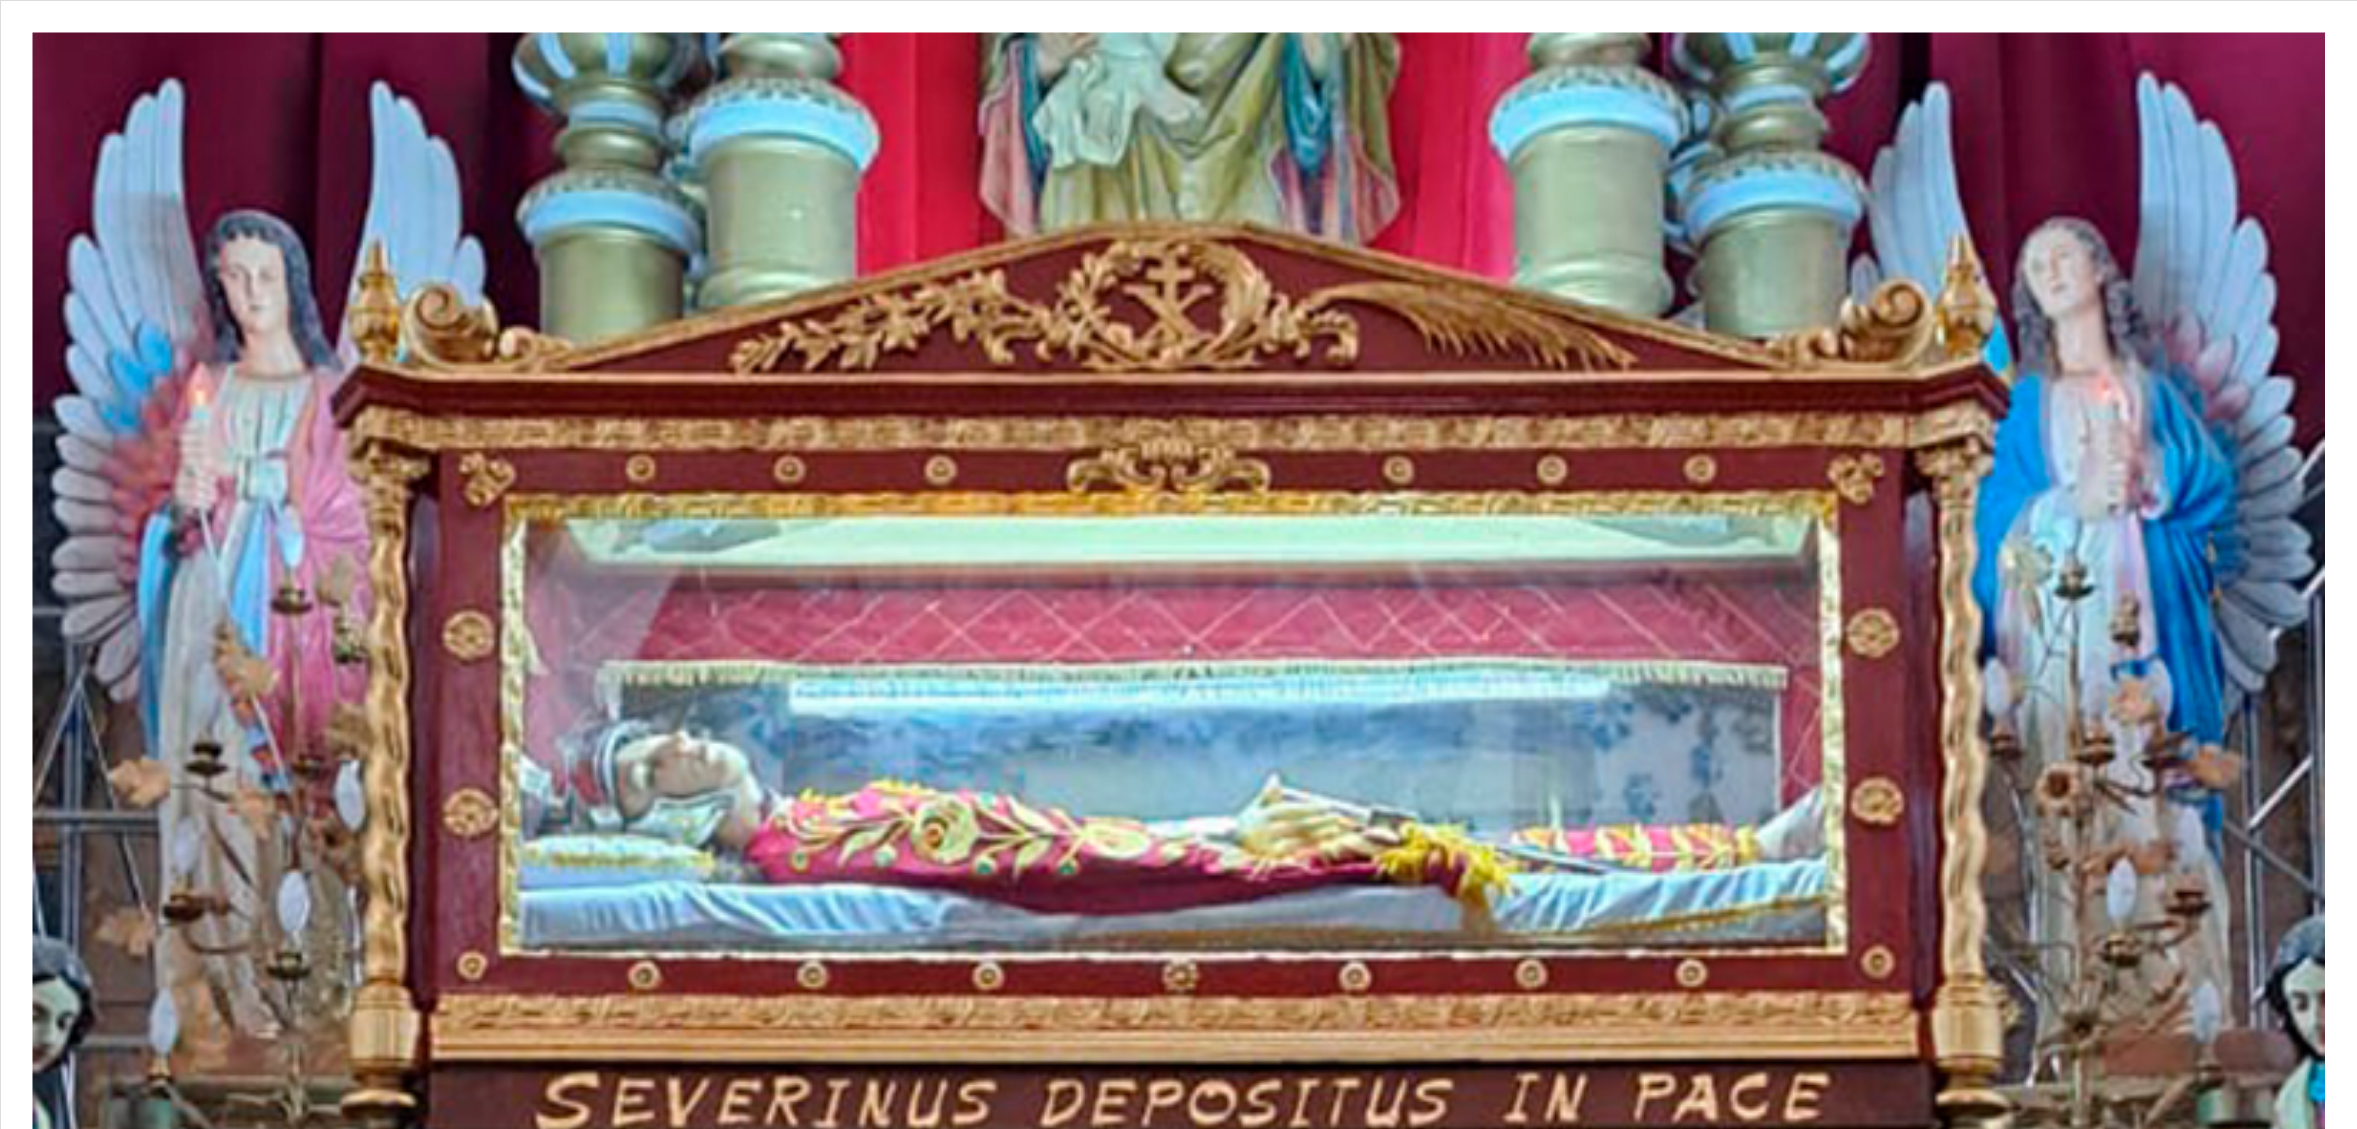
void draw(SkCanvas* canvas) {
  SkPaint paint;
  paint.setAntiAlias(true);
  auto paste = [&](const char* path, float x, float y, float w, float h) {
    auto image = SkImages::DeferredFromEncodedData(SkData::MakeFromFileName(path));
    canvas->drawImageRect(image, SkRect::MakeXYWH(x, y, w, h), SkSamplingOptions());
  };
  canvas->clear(0xffffffff);
  paint.setStroke(true);
  paint.setStrokeWidth(1);
  paint.setColor(0xffdcdcde);
  canvas->drawRect(SkRect::MakeXYWH(0.5f, 0.5f, 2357, 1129), paint);
  paste("img/1.png", 32, 32, 2293, 1097);
}
